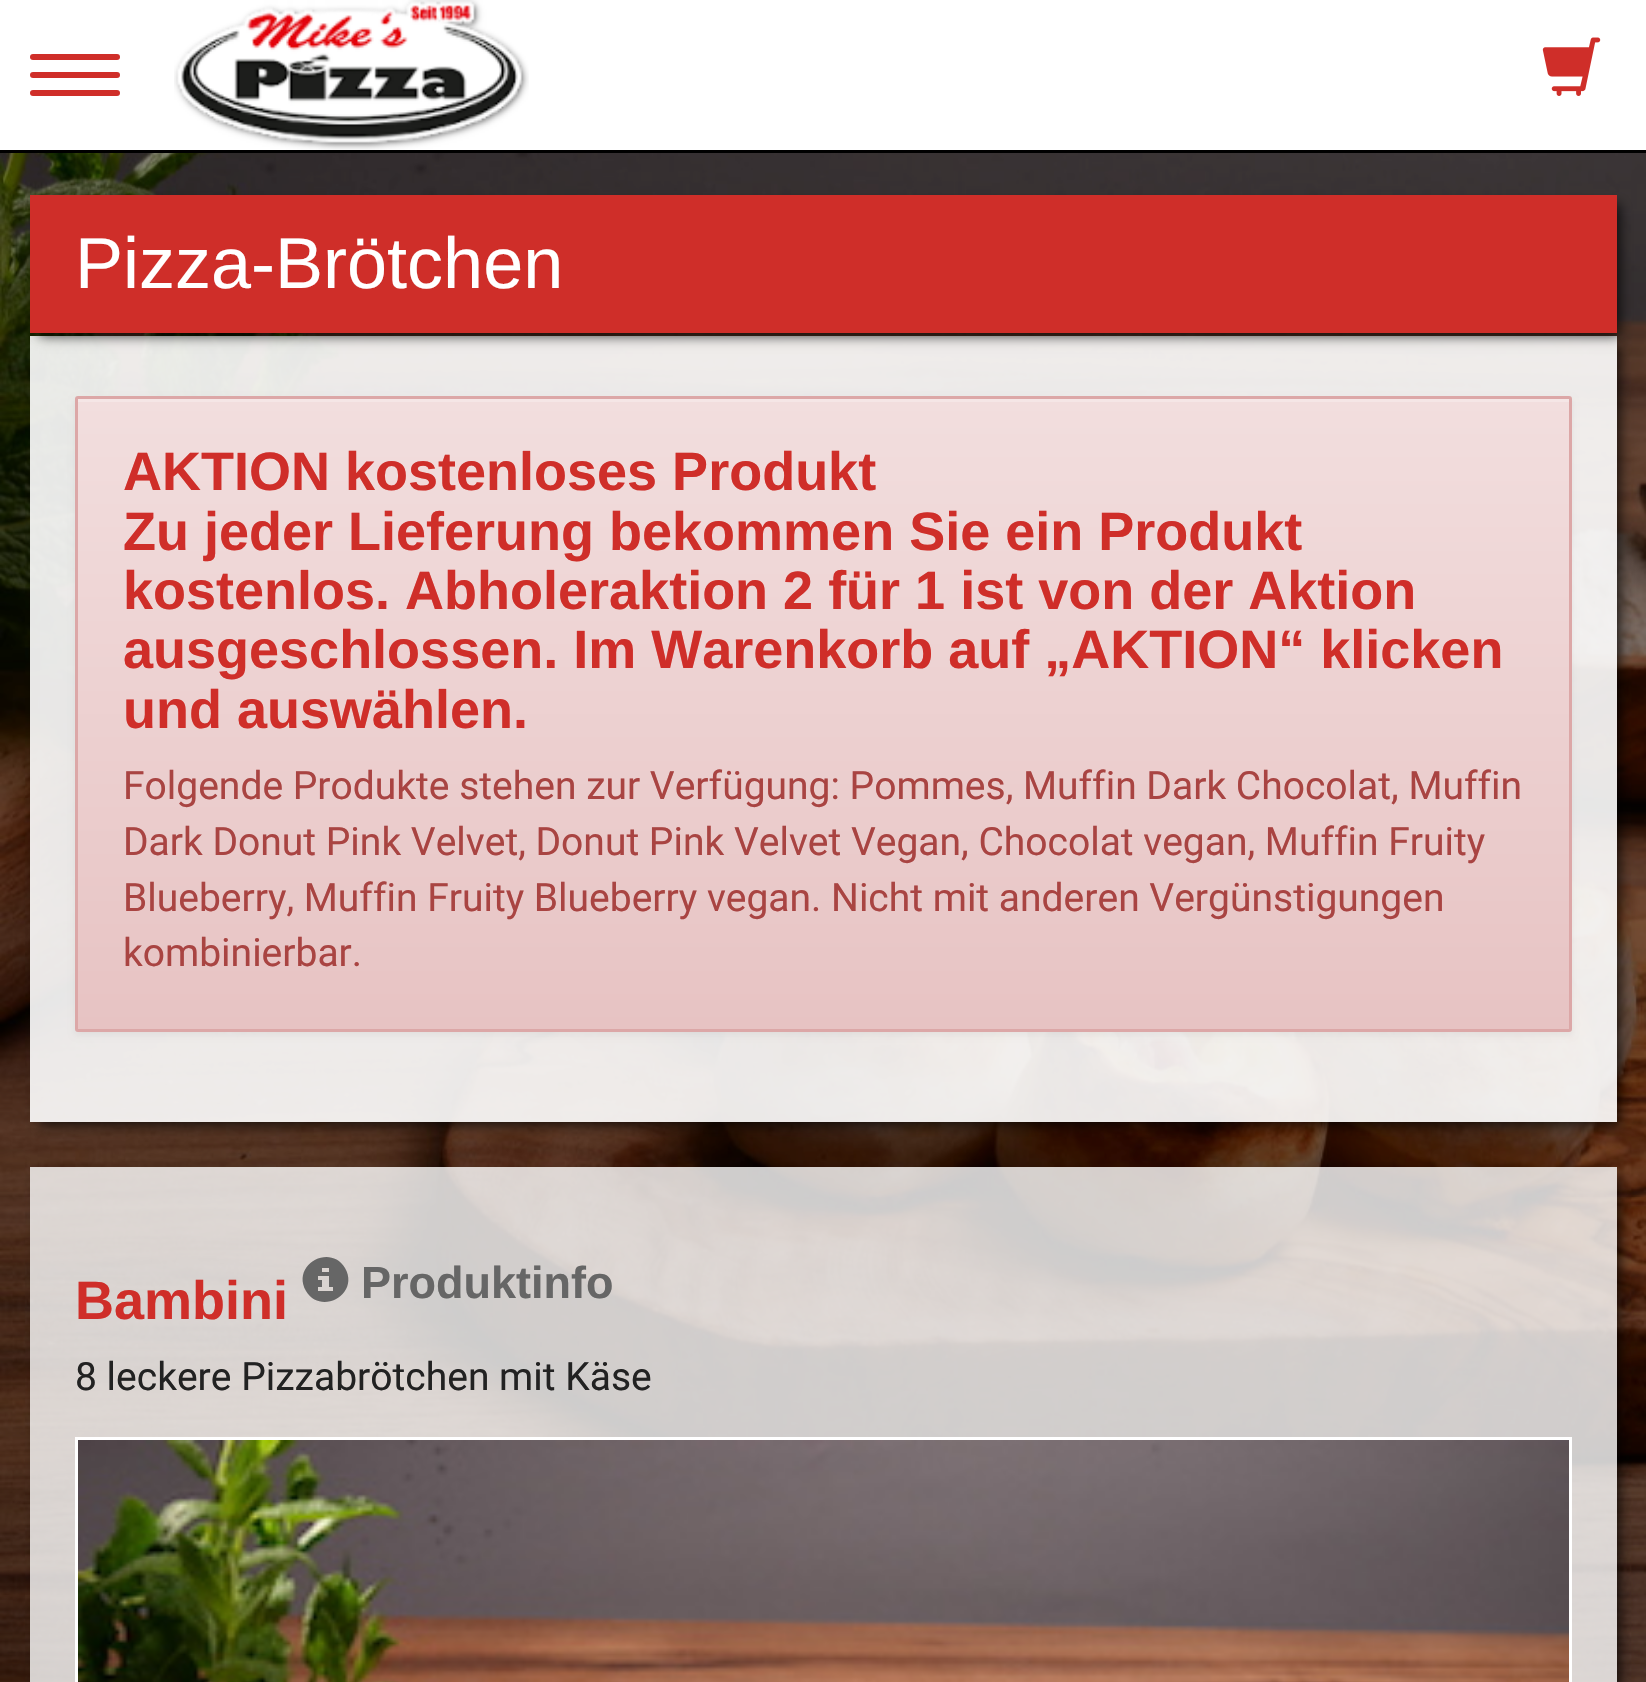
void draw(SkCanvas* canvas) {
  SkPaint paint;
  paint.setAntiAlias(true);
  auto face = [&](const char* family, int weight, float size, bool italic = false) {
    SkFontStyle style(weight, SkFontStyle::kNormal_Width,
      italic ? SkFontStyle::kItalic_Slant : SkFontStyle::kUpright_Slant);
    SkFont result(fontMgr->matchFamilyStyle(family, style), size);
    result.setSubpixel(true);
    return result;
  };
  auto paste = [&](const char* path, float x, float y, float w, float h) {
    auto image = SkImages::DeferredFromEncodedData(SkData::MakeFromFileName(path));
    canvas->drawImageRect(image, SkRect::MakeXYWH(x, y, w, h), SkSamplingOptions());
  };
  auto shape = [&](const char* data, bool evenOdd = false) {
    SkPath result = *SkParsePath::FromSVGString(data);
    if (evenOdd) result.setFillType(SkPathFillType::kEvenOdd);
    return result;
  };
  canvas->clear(0xffffffff);
  paste("img/1.png", 0, 153, 1646, 1529);
  paint.setColor(0xff000000);
  canvas->drawRect(SkRect::MakeXYWH(0, 150, 1646, 3), paint);
  paint.setColor(0xffcf2e29);
  canvas->drawRoundRect(SkRect::MakeXYWH(30, 54, 90, 6), 3, 3, paint);
  canvas->drawRoundRect(SkRect::MakeXYWH(30, 72, 90, 6), 3, 3, paint);
  canvas->drawRoundRect(SkRect::MakeXYWH(30, 90, 90, 6), 3, 3, paint);
  paste("img/2.png", 174, 0, 355, 150);
  paste("img/3.png", 1542, 37, 59, 59);
  canvas->save();
  canvas->clipPath(shape("M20 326H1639V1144H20ZM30 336H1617V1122H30Z", true), true);
  paint.setColor(0xbf000000);
  paint.setMaskFilter(SkMaskFilter::MakeBlur(kNormal_SkBlurStyle, 6));
  canvas->drawRect(SkRect::MakeXYWH(39, 345, 1581, 780), paint);
  paint.setMaskFilter(nullptr);
  canvas->restore();
  paint.setColor(0xe6ffffff);
  canvas->drawRect(SkRect::MakeXYWH(30, 336, 1587, 786), paint);
  paint.setColor(0xbf000000);
  paint.setMaskFilter(SkMaskFilter::MakeBlur(kNormal_SkBlurStyle, 6));
  canvas->drawRect(SkRect::MakeXYWH(39, 204, 1581, 132), paint);
  paint.setMaskFilter(nullptr);
  paint.setColor(0xffcf2e29);
  canvas->drawRect(SkRect::MakeXYWH(30, 195, 1587, 138), paint);
  paint.setColor(0x0d000000);
  paint.setMaskFilter(SkMaskFilter::MakeBlur(kNormal_SkBlurStyle, 3));
  canvas->drawRoundRect(SkRect::MakeXYWH(75, 399, 1497, 636), 3, 3, paint);
  paint.setMaskFilter(nullptr);
  {
    const SkColor colors[] = {0xfff2dede, 0xffe7c3c3};
    const float stops[] = {0, 1};
    const SkPoint ends[] = {{824, 399}, {824, 1029}};
    paint.setShader(SkGradientShader::MakeLinear(ends, colors, stops, 2, SkTileMode::kClamp));
    paint.setAlpha(255);
  }
  canvas->drawRect(SkRect::MakeXYWH(78, 402, 1491, 627), paint);
  paint.setShader(nullptr);
  paint.setColor(0xfff5e6e6);
  canvas->drawRect(SkRect::MakeXYWH(78, 399, 1491, 3), paint);
  paint.setStroke(true);
  paint.setStrokeWidth(3);
  paint.setColor(0xffdca7a7);
  canvas->drawRoundRect(SkRect::MakeXYWH(76.5f, 397.5f, 1494, 633), 1.5f, 1.5f, paint);
  canvas->save();
  canvas->clipPath(shape("M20 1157H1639V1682H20ZM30 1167H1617V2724H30Z", true), true);
  paint.setStroke(false);
  paint.setColor(0xbf000000);
  paint.setMaskFilter(SkMaskFilter::MakeBlur(kNormal_SkBlurStyle, 6));
  canvas->drawRect(SkRect::MakeXYWH(39, 1176, 1581, 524), paint);
  paint.setMaskFilter(nullptr);
  canvas->restore();
  paint.setColor(0xccffffff);
  canvas->drawRect(SkRect::MakeXYWH(30, 1167, 1587, 515), paint);
  paint.setColor(0xff666666);
  canvas->drawPath(shape("M306 1291C291 1265 330 1243 345 1268C360 1294 321 1316 306 1291ZM318 1291H333V1287H329V1276H318V1280H322V1287H318ZM322 1272H329V1268H322Z"), paint);
  paint.setColor(0xffffffff);
  canvas->drawRect(SkRect::MakeXYWH(75, 1437, 1497, 245), paint);
  paste("img/4.png", 78, 1440, 1491, 242);
  auto f0 = face("Liberation Sans", 400, 72);
  canvas->drawString("Pizza-Brötchen", 75, 288, f0, paint);
  auto f1 = face("Liberation Sans", 700, 54);
  paint.setColor(0xffcf2e29);
  {
    const struct { const char* s; float x, y; } items[] = {
      {"AKTION kostenloses Produkt", 123, 490},
      {"Zu jeder Lieferung bekommen Sie ein Produkt", 123, 550},
      {"kostenlos. Abholeraktion 2 für 1 ist von der Aktion", 123, 609},
      {"ausgeschlossen. Im Warenkorb auf „AKTION“ klicken", 123, 668},
      {"und auswählen.", 123, 728},
    };
    for (auto [s, x, y] : items) {
      canvas->drawString(s, x, y, f1, paint);
    }
  }
  auto f2 = face("Roboto", 400, 39);
  paint.setColor(0xffa94442);
  {
    const struct { const char* s; float x, y; } items[] = {
      {"Folgende Produkte stehen zur Verfügung: Pommes, Muffin Dark Chocolat, Muffin", 123, 799},
      {"Dark Donut Pink Velvet, Donut Pink Velvet Vegan, Chocolat vegan, Muffin Fruity", 123, 855},
      {"Blueberry, Muffin Fruity Blueberry vegan. Nicht mit anderen Vergünstigungen", 123, 911},
      {"kombinierbar.", 123, 966},
    };
    for (auto [s, x, y] : items) {
      canvas->drawString(s, x, y, f2, paint);
    }
  }
  paint.setColor(0xffcf2e29);
  canvas->drawString("Bambini", 75, 1319, f1, paint);
  auto f3 = face("Liberation Sans", 700, 45);
  paint.setColor(0xff666666);
  canvas->drawString("Produktinfo", 361, 1298, f3, paint);
  paint.setColor(0xff222222);
  canvas->drawString("8 leckere Pizzabrötchen mit Käse", 75, 1390, f2, paint);
}
